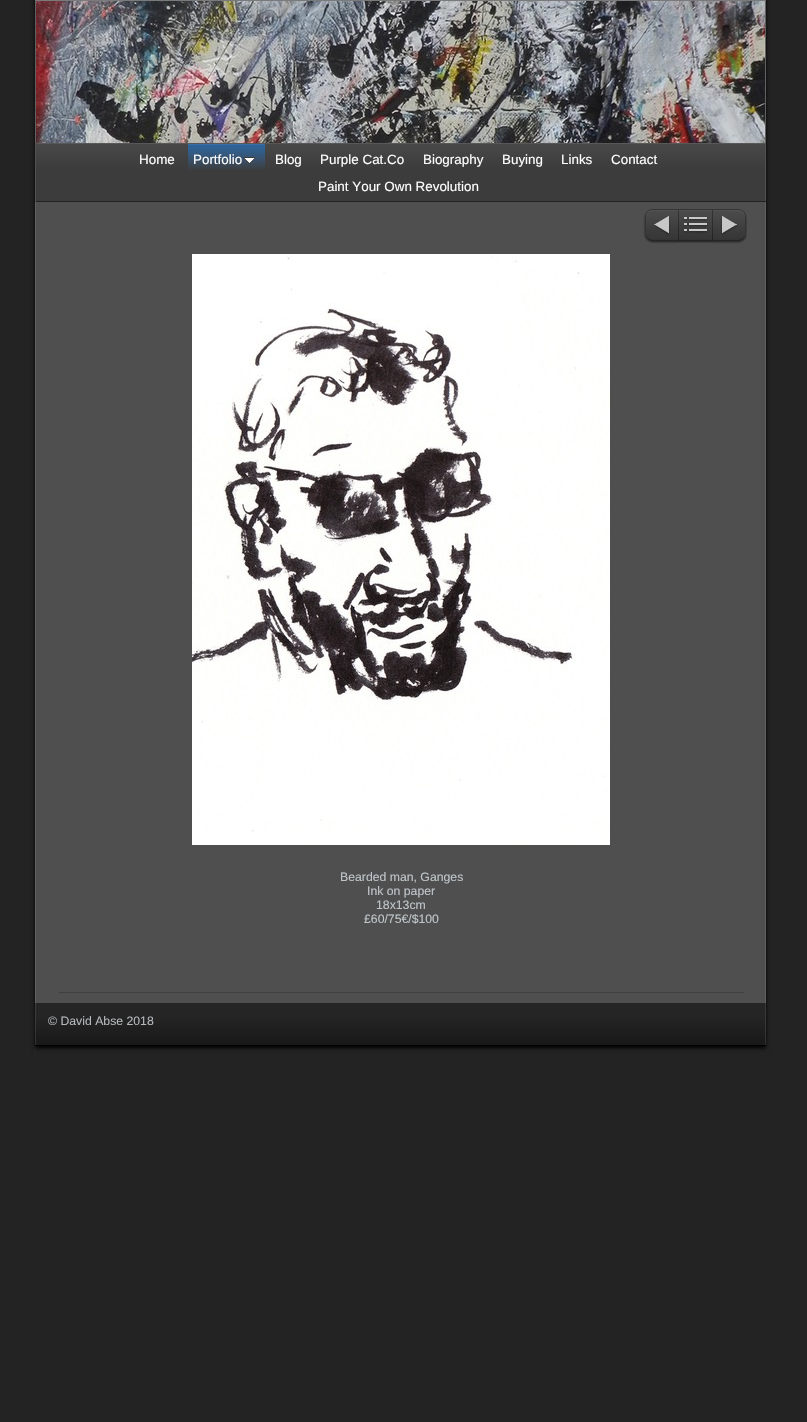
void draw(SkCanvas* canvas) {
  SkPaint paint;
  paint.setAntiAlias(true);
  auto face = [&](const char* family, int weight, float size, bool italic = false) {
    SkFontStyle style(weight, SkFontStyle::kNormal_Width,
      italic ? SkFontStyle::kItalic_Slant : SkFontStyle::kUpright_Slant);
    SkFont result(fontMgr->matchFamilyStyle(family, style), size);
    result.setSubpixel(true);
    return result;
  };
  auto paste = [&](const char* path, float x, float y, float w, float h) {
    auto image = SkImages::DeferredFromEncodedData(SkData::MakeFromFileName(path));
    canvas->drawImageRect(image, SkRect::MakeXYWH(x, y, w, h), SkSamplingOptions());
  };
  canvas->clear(0xff232323);
  paste("img/1.png", 18, 0, 771, 1054);
  paste("img/2.png", 36, 1, 729, 142);
  paint.setColor(0xff7a7a7a);
  canvas->drawRect(SkRect::MakeXYWH(35, 0, 731, 1), paint);
  paste("img/3.png", 36, 144, 729, 57);
  {
    const struct { float x, y, w, h; SkColor color; } items[] = {
      {35, 143, 731, 1, 0xff585858},
      {765, 143, 1, 59, 0xff525252},
      {35, 201, 731, 1, 0xff232323},
      {35, 143, 1, 59, 0xff525252},
    };
    for (auto [x, y, w, h, color] : items) {
      paint.setColor(color);
      canvas->drawRect(SkRect::MakeXYWH(x, y, w, h), paint);
    }
  }
  paste("img/4.png", 188, 144, 77, 26);
  paste("img/5.png", 244, 157, 11, 7);
  paste("img/6.png", 643, 209, 35, 35);
  paste("img/7.png", 678, 209, 35, 34);
  paste("img/8.png", 713, 209, 34, 35);
  paint.setColor(0xff3f3f3f);
  canvas->drawRect(SkRect::MakeXYWH(59, 992, 685, 1), paint);
  paste("img/9.png", 192, 254, 418, 591);
  paste("img/10.png", 33, 1003, 736, 51);
  auto f0 = face("Liberation Sans", 400, 13.4f);
  paint.setColor(0xffffffff);
  {
    const struct { const char* s; float x, y; } items[] = {
      {"Home", 139, 164},
      {"Portfolio", 193, 164},
      {"Blog", 275, 164},
      {"Purple Cat.Co", 320, 164},
      {"Biography", 423, 164},
      {"Buying", 502, 164},
      {"Links", 561, 164},
      {"Contact", 611, 164},
      {"Paint Your Own Revolution", 318, 191},
    };
    for (auto [s, x, y] : items) {
      canvas->drawString(s, x, y, f0, paint);
    }
  }
  auto f1 = face("Liberation Sans", 400, 12.25f);
  paint.setColor(0xffbfc6ca);
  {
    const struct { const char* s; float x, y; } items[] = {
      {"Bearded man, Ganges", 340, 881},
      {"Ink on paper", 367, 895},
      {"18x13cm", 376, 909},
      {"£60/75€/$100", 364, 923},
    };
    for (auto [s, x, y] : items) {
      canvas->drawString(s, x, y, f1, paint);
    }
  }
  paint.setColor(0xffb3b9bd);
  canvas->drawString("© David Abse 2018", 48, 1025, f1, paint);
}
